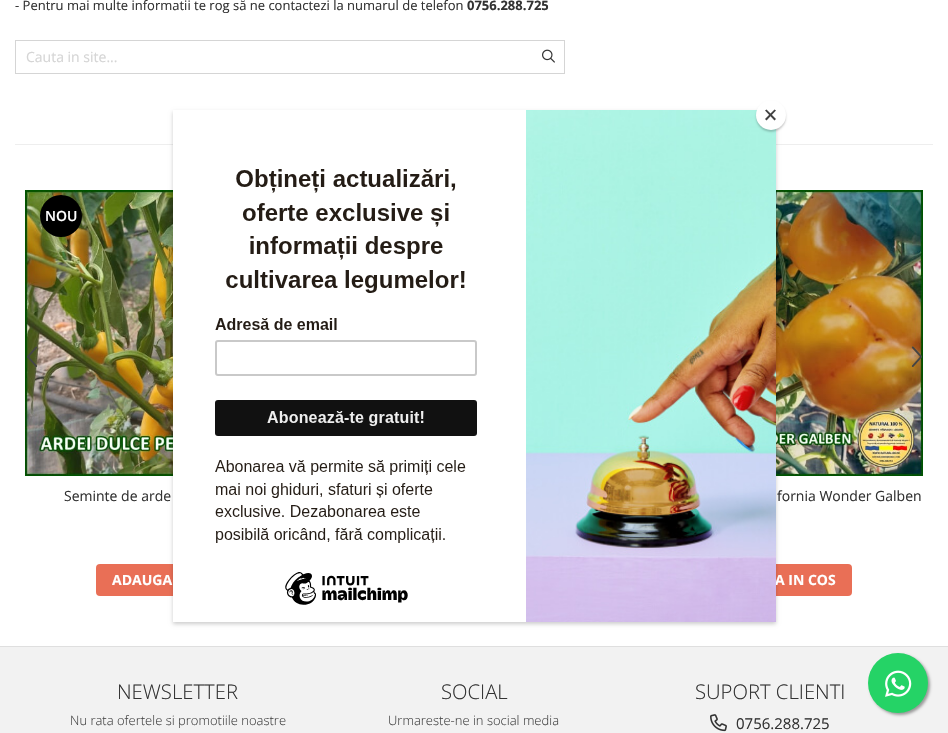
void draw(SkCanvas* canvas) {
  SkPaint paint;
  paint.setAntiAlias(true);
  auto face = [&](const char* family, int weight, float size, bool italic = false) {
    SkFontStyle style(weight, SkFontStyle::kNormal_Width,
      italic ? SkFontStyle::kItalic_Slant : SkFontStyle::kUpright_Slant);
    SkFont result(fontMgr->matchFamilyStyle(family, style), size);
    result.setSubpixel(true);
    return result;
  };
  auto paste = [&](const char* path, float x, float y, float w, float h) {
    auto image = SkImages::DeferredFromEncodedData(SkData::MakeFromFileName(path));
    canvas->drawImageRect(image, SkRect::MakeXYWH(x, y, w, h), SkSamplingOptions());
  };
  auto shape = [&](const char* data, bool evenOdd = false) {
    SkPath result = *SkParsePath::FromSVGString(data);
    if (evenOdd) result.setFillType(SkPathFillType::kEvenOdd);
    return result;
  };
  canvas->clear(0xffffffff);
  paint.setStroke(true);
  paint.setStrokeWidth(1);
  paint.setColor(0xffd5d5d5);
  canvas->drawRect(SkRect::MakeXYWH(15.5f, 40.5f, 549, 33), paint);
  paste("img/1.png", 542, 49, 13, 14);
  paint.setStroke(false);
  paint.setColor(0xffeeeeee);
  canvas->drawRect(SkRect::MakeXYWH(15, 144, 918, 1), paint);
  paste("img/2.png", 25, 190, 148, 286);
  paint.setColor(0xff000000);
  canvas->drawCircle(61, 216, 21, paint);
  paint.setColor(0xffe96f56);
  canvas->drawRoundRect(SkRect::MakeXYWH(96, 564, 144, 32), 4, 4, paint);
  paste("img/3.png", 776, 190, 147, 286);
  canvas->drawRoundRect(SkRect::MakeXYWH(708, 564, 144, 32), 4, 4, paint);
  paste("img/4.png", 27, 346, 11, 21);
  paste("img/5.png", 911, 346, 11, 21);
  paint.setColor(0xfff2f2f2);
  canvas->drawRect(SkRect::MakeXYWH(0, 647, 948, 86), paint);
  paint.setColor(0xffdfdfdf);
  canvas->drawRect(SkRect::MakeXYWH(0, 646, 948, 1), paint);
  paste("img/6.png", 710, 714, 17, 18);
  paint.setColor(0x33000000);
  paint.setMaskFilter(SkMaskFilter::MakeBlur(kNormal_SkBlurStyle, 2));
  canvas->drawRect(SkRect::MakeXYWH(173, 112, 603, 512), paint);
  paint.setMaskFilter(nullptr);
  paint.setColor(0xff999999);
  paint.setMaskFilter(SkMaskFilter::MakeBlur(kNormal_SkBlurStyle, 1.5f));
  canvas->drawRoundRect(SkRect::MakeXYWH(870, 655, 60, 60), 30, 30, paint);
  paint.setMaskFilter(nullptr);
  paint.setColor(0xff25d366);
  canvas->drawCircle(898, 683, 30, paint);
  paste("img/8.png", 885, 670, 27, 27);
  auto f0 = face("Open Sans", 400, 13);
  paint.setColor(0xff333333);
  canvas->drawString("- Pentru mai multe informatii te rog să ne contactezi la numarul de telefon", 15, 10, f0, paint);
  auto f1 = face("Open Sans", 700, 13);
  canvas->drawString("0756.288.725", 467, 10, f1, paint);
  auto f2 = face("Open Sans", 400, 14);
  paint.setColor(0xffd5d5d5);
  canvas->drawString("Cauta in site...", 26, 62, f2, paint);
  auto f3 = face("Open Sans", 600, 14);
  paint.setColor(0xffffffff);
  canvas->drawString("NOU", 45, 221, f3, paint);
  paint.setColor(0xff333333);
  canvas->drawString("Seminte de arde", 64, 501, f2, paint);
  auto f4 = face("Open Sans", 700, 14);
  paint.setColor(0xffffffff);
  canvas->drawString("ADAUGA", 112, 585, f4, paint);
  paint.setColor(0xff333333);
  canvas->drawString("fornia Wonder Galben", 777, 501, f2, paint);
  paint.setColor(0xffffffff);
  canvas->drawString("A IN COS", 775, 585, f4, paint);
  auto f5 = face("Open Sans", 300, 20.25f);
  paint.setColor(0xff333333);
  canvas->drawString("NEWSLETTER", 117, 699, f5, paint);
  auto f6 = face("Open Sans", 300, 13);
  paint.setColor(0xff444444);
  canvas->drawString("Nu rata ofertele si promotiile noastre", 70, 725, f6, paint);
  paint.setColor(0xff333333);
  canvas->drawString("SOCIAL", 441, 699, f5, paint);
  paint.setColor(0xff444444);
  canvas->drawString("Urmareste-ne in social media", 388, 725, f6, paint);
  paint.setColor(0xff333333);
  canvas->drawString("SUPORT CLIENTI", 695, 699, f5, paint);
  auto f7 = face("Open Sans", 400, 15);
  canvas->drawString("0756.288.725", 736, 729, f7, paint);
  paste("img/7.png", 173, 110, 603, 512);
  paint.setColor(0x33000000);
  paint.setMaskFilter(SkMaskFilter::MakeBlur(kNormal_SkBlurStyle, 1));
  canvas->drawRoundRect(SkRect::MakeXYWH(756, 102, 30, 30), 15, 15, paint);
  paint.setMaskFilter(nullptr);
  paint.setColor(0xffffffff);
  canvas->drawCircle(771, 115, 15, paint);
  paint.setColor(0xff414141);
  canvas->drawPath(shape("M774.5 109.5L776 110.5L766.5 120.5L765 119Z"), paint);
  canvas->drawPath(shape("M765 110.5L766.5 109.5L776 119L774.5 120.5Z"), paint);
}
